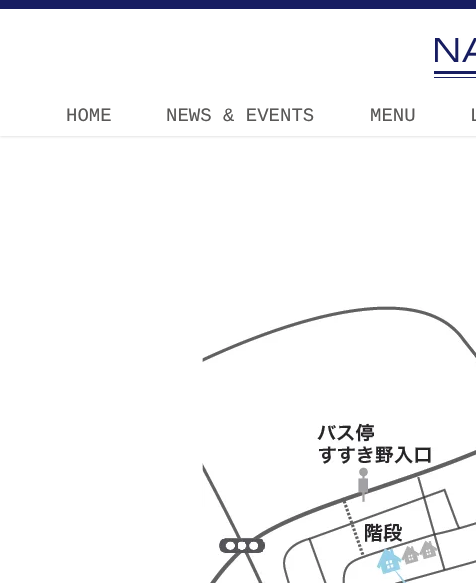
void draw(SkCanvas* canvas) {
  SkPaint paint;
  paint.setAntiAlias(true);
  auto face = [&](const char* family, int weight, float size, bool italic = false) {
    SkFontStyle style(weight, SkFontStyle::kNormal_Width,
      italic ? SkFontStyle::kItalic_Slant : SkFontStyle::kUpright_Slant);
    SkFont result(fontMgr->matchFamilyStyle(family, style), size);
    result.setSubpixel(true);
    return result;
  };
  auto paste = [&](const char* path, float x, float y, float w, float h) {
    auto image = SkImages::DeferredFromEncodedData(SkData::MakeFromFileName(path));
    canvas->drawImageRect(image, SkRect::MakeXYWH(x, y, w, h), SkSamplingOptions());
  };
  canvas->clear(0xffffffff);
  canvas->save();
  canvas->clipRect(SkRect::MakeXYWH(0, 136, 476, 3));
  paint.setColor(0xb3b7b6b6);
  paint.setMaskFilter(SkMaskFilter::MakeBlur(kNormal_SkBlurStyle, 1.5f));
  canvas->drawRect(SkRect::MakeXYWH(0, 0, 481, 136), paint);
  paint.setMaskFilter(nullptr);
  canvas->restore();
  paint.setColor(0xff171d61);
  canvas->drawRect(SkRect::MakeXYWH(0, 0, 476, 9), paint);
  paste("img/1.png", 435, 38, 41, 24);
  canvas->drawRect(SkRect::MakeXYWH(434, 71, 42, 3), paint);
  canvas->drawRect(SkRect::MakeXYWH(434, 77, 42, 1), paint);
  paste("img/2.png", 202, 303, 274, 280);
  auto f0 = face("Liberation Mono", 400, 19);
  paint.setColor(0xff595857);
  {
    const struct { const char* s; float x, y; } items[] = {
      {"HOME", 66, 121},
      {"NEWS & EVENTS", 166, 121},
      {"MENU", 370, 121},
      {"L", 470, 121},
    };
    for (auto [s, x, y] : items) {
      canvas->drawString(s, x, y, f0, paint);
    }
  }
}
